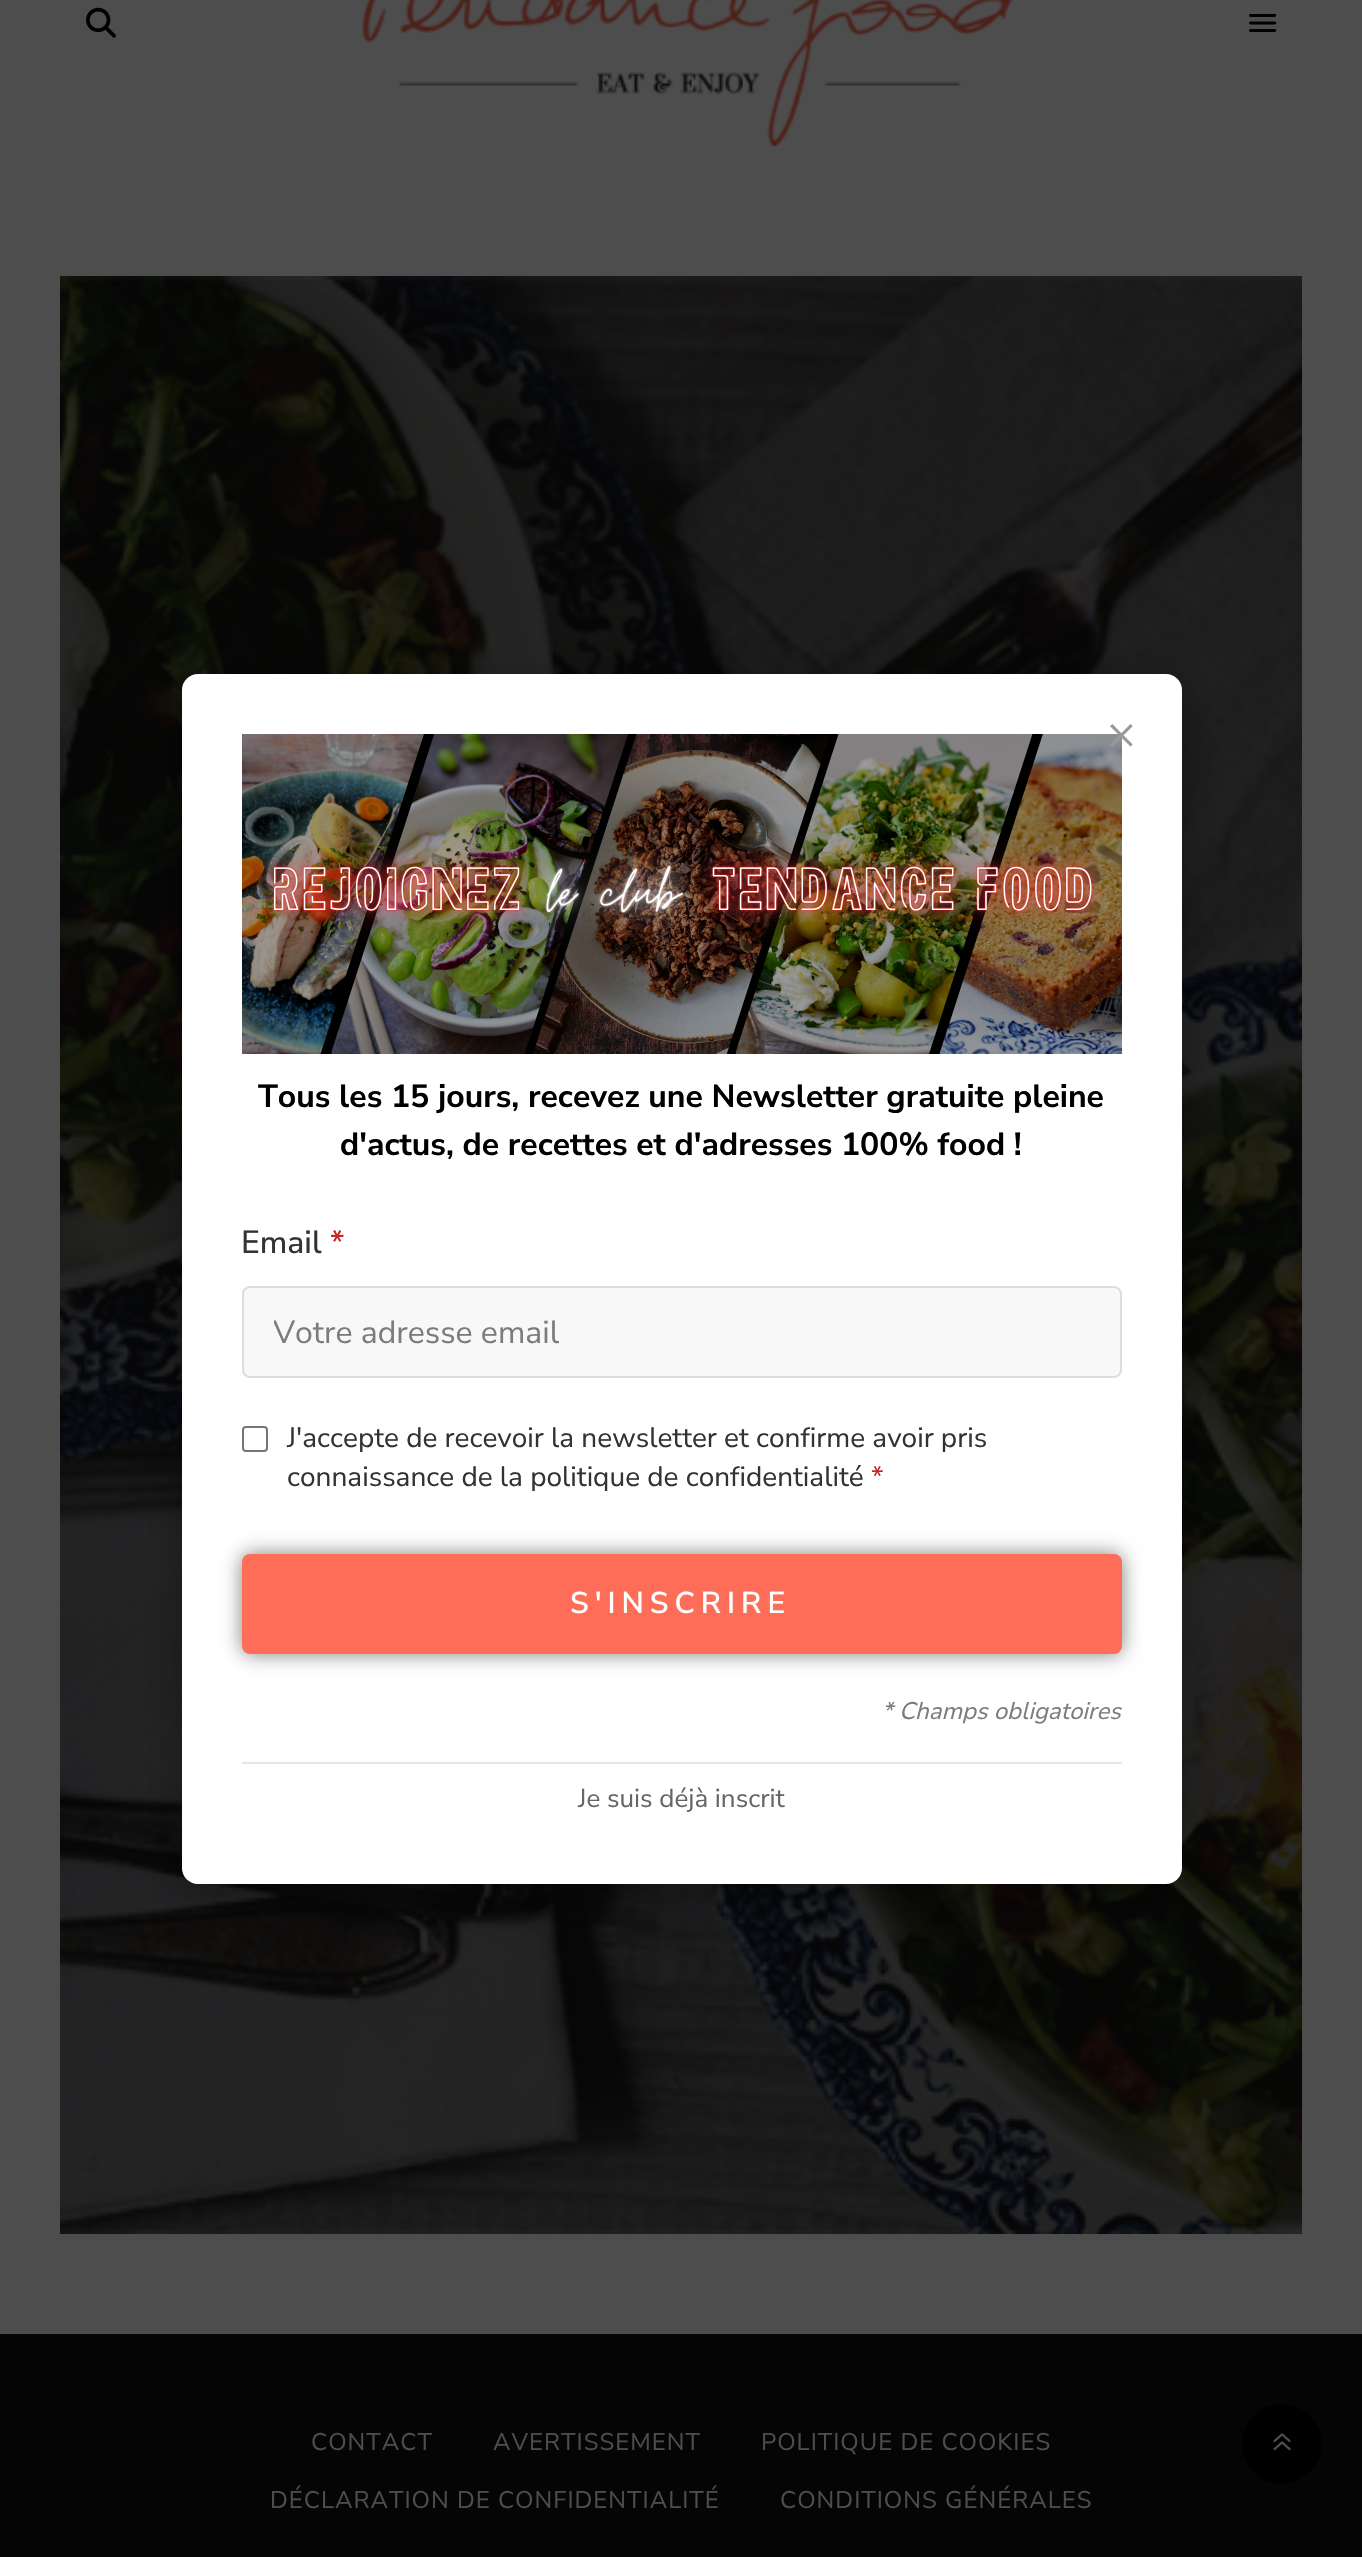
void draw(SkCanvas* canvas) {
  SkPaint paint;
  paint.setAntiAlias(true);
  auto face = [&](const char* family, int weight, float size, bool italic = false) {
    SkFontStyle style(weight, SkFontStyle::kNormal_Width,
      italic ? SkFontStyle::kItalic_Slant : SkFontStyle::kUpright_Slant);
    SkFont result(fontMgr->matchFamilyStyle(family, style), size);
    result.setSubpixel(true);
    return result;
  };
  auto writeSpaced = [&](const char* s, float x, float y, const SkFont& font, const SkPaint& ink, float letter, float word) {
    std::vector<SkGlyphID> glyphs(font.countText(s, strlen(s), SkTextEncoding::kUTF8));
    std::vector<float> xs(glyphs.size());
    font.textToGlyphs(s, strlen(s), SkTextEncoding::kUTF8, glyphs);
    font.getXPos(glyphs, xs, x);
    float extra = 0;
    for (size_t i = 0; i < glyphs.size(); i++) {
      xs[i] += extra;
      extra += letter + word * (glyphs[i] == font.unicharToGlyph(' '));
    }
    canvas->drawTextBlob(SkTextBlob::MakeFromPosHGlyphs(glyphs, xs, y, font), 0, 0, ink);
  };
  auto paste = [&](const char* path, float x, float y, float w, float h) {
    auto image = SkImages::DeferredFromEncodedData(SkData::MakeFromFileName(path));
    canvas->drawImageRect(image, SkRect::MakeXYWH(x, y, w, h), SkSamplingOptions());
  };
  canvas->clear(0xff4d4d4d);
  paste("img/5.png", 60, 276, 1242, 1958);
  paint.setColor(0x4d000000);
  paint.setMaskFilter(SkMaskFilter::MakeBlur(kNormal_SkBlurStyle, 20));
  canvas->drawRoundRect(SkRect::MakeXYWH(182, 684, 1000, 1210), 16, 16, paint);
  paint.setMaskFilter(nullptr);
  paint.setMaskFilter(SkMaskFilter::MakeBlur(kNormal_SkBlurStyle, 1));
  canvas->drawRoundRect(SkRect::MakeXYWH(182, 1350, 1000, 92), 46, 46, paint);
  paint.setMaskFilter(nullptr);
  paint.setColor(0xffffffff);
  canvas->drawRoundRect(SkRect::MakeXYWH(182, 674, 1000, 1210), 16, 16, paint);
  paste("img/1.png", 242, 734, 880, 320);
  paint.setColor(0xfff8f8f8);
  canvas->drawRoundRect(SkRect::MakeXYWH(243, 1287, 878, 90), 7, 7, paint);
  paint.setStroke(true);
  paint.setStrokeWidth(2);
  paint.setColor(0xffdddddd);
  canvas->drawRoundRect(SkRect::MakeXYWH(243, 1287, 878, 90), 7, 7, paint);
  paint.setColor(0xff767676);
  canvas->drawRoundRect(SkRect::MakeXYWH(243, 1427, 24, 24), 3, 3, paint);
  paint.setStroke(false);
  paint.setColor(0x80000000);
  paint.setMaskFilter(SkMaskFilter::MakeBlur(kNormal_SkBlurStyle, 10));
  canvas->drawRoundRect(SkRect::MakeXYWH(242, 1554, 880, 100), 8, 8, paint);
  paint.setMaskFilter(nullptr);
  paint.setColor(0xfffe6d57);
  canvas->drawRoundRect(SkRect::MakeXYWH(242, 1554, 880, 100), 8, 8, paint);
  paint.setColor(0xffe7e7e7);
  canvas->drawRect(SkRect::MakeXYWH(242, 1762, 880, 2), paint);
  paste("img/2.png", 86, 7, 30, 31);
  paste("img/3.png", 361, 0, 653, 146);
  paste("img/4.png", 1249, 14, 28, 18);
  paint.setColor(0xff050505);
  canvas->drawRect(SkRect::MakeXYWH(0, 2334, 1362, 223), paint);
  paint.setColor(0xff000000);
  canvas->drawCircle(1282, 2444, 40, paint);
  paste("img/6.png", 1273, 2433, 18, 18);
  auto f0 = face("Nunito Sans", 400, 48);
  paint.setColor(0xff999999);
  canvas->drawString("×", 1107, 749, f0, paint);
  auto f1 = face("Nunito Sans", 700, 32);
  paint.setColor(0xff000000);
  canvas->drawString("Tous les 15 jours, recevez une Newsletter gratuite pleine", 258, 1107, f1, paint);
  canvas->drawString("d'actus, de recettes et d'adresses 100% food !", 340, 1155, f1, paint);
  auto f2 = face("Nunito Sans", 500, 32);
  paint.setColor(0xff333333);
  canvas->drawString("Email", 241, 1253, f2, paint);
  paint.setColor(0xffc62828);
  canvas->drawString("*", 330, 1253, f2, paint);
  canvas->save();
  canvas->clipRect(SkRect::MakeXYWH(274, 1310, 816, 44));
  auto f3 = face("Nunito Sans", 400, 32);
  paint.setColor(0xff7c7c7c);
  canvas->drawString("Votre adresse email", 273, 1343, f3, paint);
  canvas->restore();
  auto f4 = face("Nunito Sans", 400, 28);
  paint.setColor(0xff333333);
  canvas->drawString("J'accepte de recevoir la newsletter et confirme avoir pris", 287, 1447, f4, paint);
  canvas->drawString("connaissance de la politique de confidentialité", 287, 1486, f4, paint);
  paint.setColor(0xffc62828);
  canvas->drawString("*", 871, 1486, f4, paint);
  auto f5 = face("Nunito Sans", 600, 30);
  paint.setColor(0xffffffff);
  writeSpaced("S'INSCRIRE", 570, 1613, f5, paint, 6, 0);
  auto f6 = face("Nunito Sans", 400, 24, true);
  paint.setColor(0xff7c7c7c);
  canvas->drawString("* Champs obligatoires", 882, 1719, f6, paint);
  auto f7 = face("Nunito Sans", 400, 26);
  paint.setColor(0xff666666);
  canvas->drawString("Je suis déjà inscrit", 578, 1807, f7, paint);
  auto f8 = face("Nunito Sans", 400, 24);
  paint.setColor(0xff4d4d4d);
  {
    const struct { const char* s; float x, y; } items[] = {
      {"CONTACT", 311, 2450},
      {"AVERTISSEMENT", 493, 2450},
      {"POLITIQUE DE COOKIES", 761, 2450},
      {"DÉCLARATION DE CONFIDENTIALITÉ", 270, 2508},
      {"CONDITIONS GÉNÉRALES", 780, 2508},
    };
    for (auto [s, x, y] : items) {
      writeSpaced(s, x, y, f8, paint, 1, 0);
    }
  }
}
